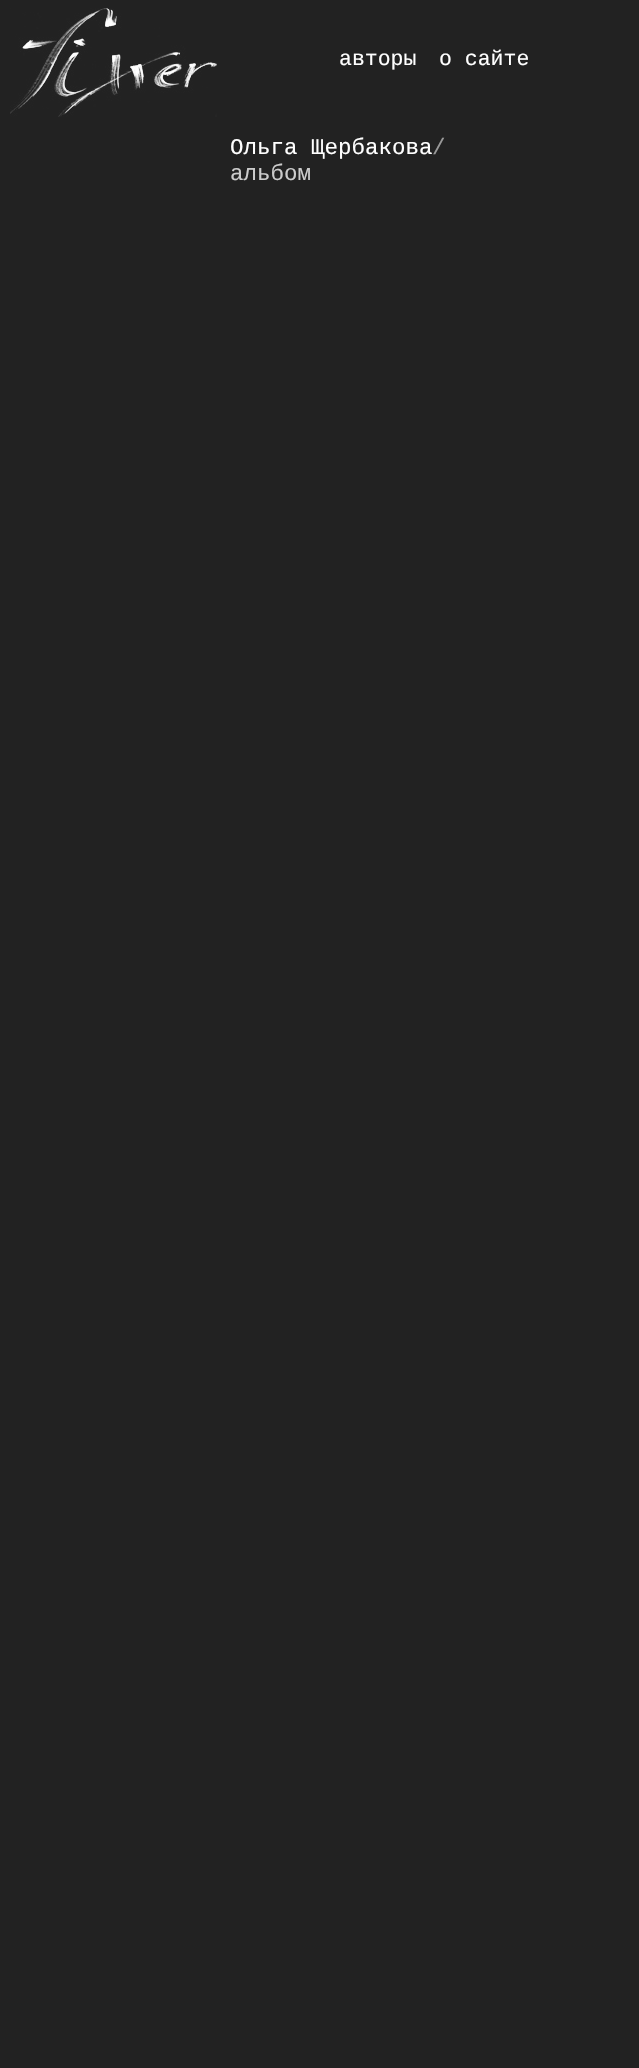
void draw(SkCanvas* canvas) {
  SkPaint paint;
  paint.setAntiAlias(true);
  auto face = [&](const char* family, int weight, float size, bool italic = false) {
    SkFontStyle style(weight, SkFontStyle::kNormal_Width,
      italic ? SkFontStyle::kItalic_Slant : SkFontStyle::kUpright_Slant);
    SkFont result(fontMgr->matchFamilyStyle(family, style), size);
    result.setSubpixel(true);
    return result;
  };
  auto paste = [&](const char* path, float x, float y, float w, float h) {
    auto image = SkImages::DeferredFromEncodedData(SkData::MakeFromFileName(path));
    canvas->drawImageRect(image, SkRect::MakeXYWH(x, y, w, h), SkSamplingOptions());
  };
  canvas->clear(0xff222222);
  paste("img/1.png", 10, 8, 207, 109);
  auto f0 = face("Liberation Mono", 400, 21.5f);
  paint.setColor(0xffffffff);
  canvas->drawString("авторы", 339, 65, f0, paint);
  canvas->drawString("о сайте", 439, 65, f0, paint);
  auto f1 = face("Liberation Mono", 400, 22.5f);
  canvas->drawString("Ольга Щербакова", 230, 154, f1, paint);
  paint.setColor(0xff999999);
  canvas->drawString("/", 432, 154, f1, paint);
  paint.setColor(0xffcccccc);
  canvas->drawString("альбом", 230, 180, f1, paint);
}
